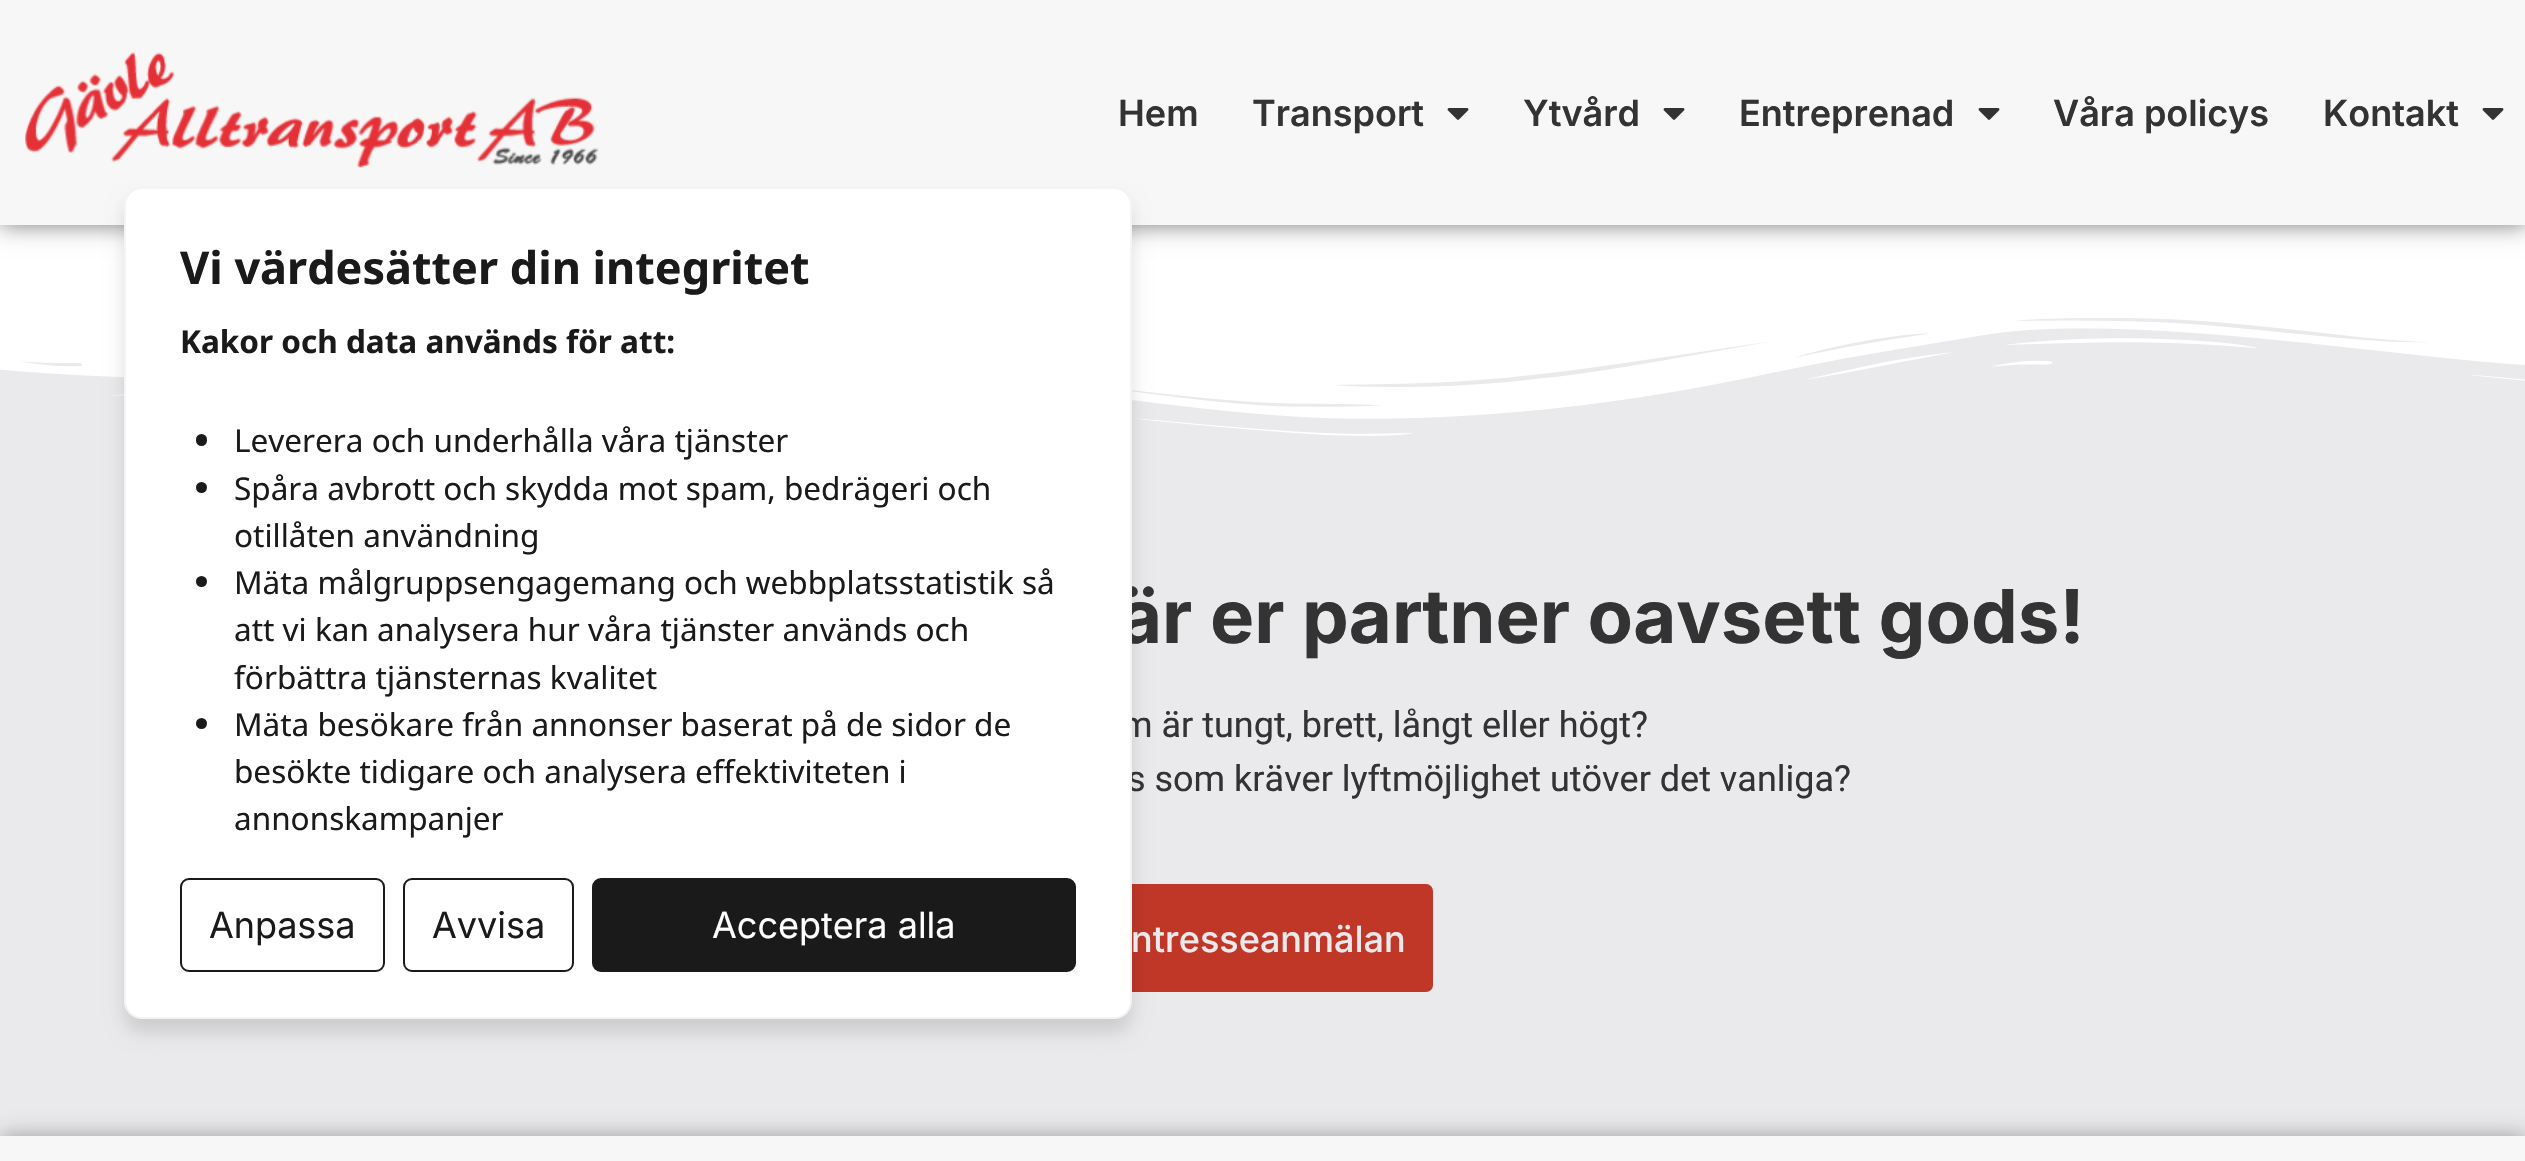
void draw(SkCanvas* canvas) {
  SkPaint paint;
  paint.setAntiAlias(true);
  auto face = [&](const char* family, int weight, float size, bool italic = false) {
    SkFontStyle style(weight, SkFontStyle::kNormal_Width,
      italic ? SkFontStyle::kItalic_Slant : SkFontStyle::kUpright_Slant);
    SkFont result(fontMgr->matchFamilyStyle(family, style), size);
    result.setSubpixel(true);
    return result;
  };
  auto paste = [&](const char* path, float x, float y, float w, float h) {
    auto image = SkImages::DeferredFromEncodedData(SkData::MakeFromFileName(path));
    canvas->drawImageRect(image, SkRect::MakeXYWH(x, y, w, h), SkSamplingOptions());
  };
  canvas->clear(0xffffffff);
  paint.setColor(0x85000000);
  paint.setMaskFilter(SkMaskFilter::MakeBlur(kNormal_SkBlurStyle, 11));
  canvas->drawRect(SkRect::MakeXYWH(0, 0, 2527, 225), paint);
  paint.setMaskFilter(nullptr);
  paint.setColor(0xfff7f7f7);
  canvas->drawRect(SkRect::MakeXYWH(0, 0, 2525, 225), paint);
  paste("img/1.png", 25, 52, 574, 116);
  paste("img/2.png", 1447, 108, 22, 12);
  paste("img/2.png", 1663, 108, 22, 12);
  paste("img/2.png", 1978, 108, 22, 12);
  paste("img/2.png", 2482, 108, 22, 12);
  paint.setColor(0xffeaeaec);
  canvas->drawRect(SkRect::MakeXYWH(0, 317, 2525, 819), paint);
  paste("img/3.png", 0, 302, 2525, 134);
  paint.setColor(0xffc03728);
  canvas->drawRoundRect(SkRect::MakeXYWH(1094, 884, 339, 108), 7, 7, paint);
  paint.setColor(0x1f000000);
  paint.setMaskFilter(SkMaskFilter::MakeBlur(kNormal_SkBlurStyle, 9));
  canvas->drawRoundRect(SkRect::MakeXYWH(124, 200, 1008, 833), 18, 18, paint);
  paint.setMaskFilter(nullptr);
  paint.setColor(0x57000000);
  paint.setMaskFilter(SkMaskFilter::MakeBlur(kNormal_SkBlurStyle, 11));
  canvas->drawRect(SkRect::MakeXYWH(0, 1136, 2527, 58), paint);
  paint.setMaskFilter(nullptr);
  paint.setColor(0xfff7f7f7);
  canvas->drawRect(SkRect::MakeXYWH(0, 1136, 2525, 25), paint);
  auto f0 = face("Inter", 600, 36);
  paint.setColor(0xff333333);
  {
    const struct { const char* s; float x, y; } items[] = {
      {"Hem", 1118, 126},
      {"Transport", 1252, 126},
      {"Ytvård", 1523, 126},
      {"Entreprenad", 1739, 126},
      {"Våra policys", 2053, 126},
      {"Kontakt", 2323, 126},
    };
    for (auto [s, x, y] : items) {
      canvas->drawString(s, x, y, f0, paint);
    }
  }
  auto f1 = face("Inter", 700, 74.25f);
  canvas->drawString("är er partner oavsett gods!", 1119, 643, f1, paint);
  auto f2 = face("Roboto", 400, 36);
  canvas->drawString("m är tungt, brett, långt eller högt?", 1121, 737, f2, paint);
  canvas->drawString("s som kräver lyftmöjlighet utöver det vanliga?", 1127, 791, f2, paint);
  paint.setColor(0xffffffff);
  canvas->drawRoundRect(SkRect::MakeXYWH(125, 188, 1006, 830), 17, 17, paint);
  paint.setStroke(true);
  paint.setStrokeWidth(2);
  paint.setColor(0xfff4f4f4);
  canvas->drawRoundRect(SkRect::MakeXYWH(125, 188, 1006, 830), 17, 17, paint);
  paint.setStroke(false);
  paint.setColor(0xff1a1a1a);
  canvas->drawRoundRect(SkRect::MakeXYWH(593, 879, 482, 92), 8, 8, paint);
  paint.setStroke(true);
  canvas->drawRoundRect(SkRect::MakeXYWH(593, 879, 482, 92), 8, 8, paint);
  auto f3 = face("Inter", 400, 36);
  paint.setStroke(false);
  paint.setColor(0xffffffff);
  canvas->drawString("Acceptera alla", 712, 938, f3, paint);
  paint.setStroke(true);
  paint.setColor(0xff1a1a1a);
  canvas->drawRoundRect(SkRect::MakeXYWH(404, 879, 169, 92), 8, 8, paint);
  paint.setStroke(false);
  canvas->drawString("Avvisa", 432, 938, f3, paint);
  paint.setStroke(true);
  canvas->drawRoundRect(SkRect::MakeXYWH(181, 879, 203, 92), 8, 8, paint);
  paint.setStroke(false);
  canvas->drawString("Anpassa", 209, 938, f3, paint);
  auto f4 = face("Noto Sans", 400, 31.5f);
  {
    const struct { const char* s; float x, y; } items[] = {
      {"annonskampanjer", 234, 830},
      {"besökte tidigare och analysera effektiviteten i", 234, 783},
      {"Mäta besökare från annonser baserat på de sidor de", 234, 736},
    };
    for (auto [s, x, y] : items) {
      canvas->drawString(s, x, y, f4, paint);
    }
  }
  canvas->drawCircle(201.5f, 723.5f, 5.5f, paint);
  {
    const struct { const char* s; float x, y; } items[] = {
      {"förbättra tjänsternas kvalitet", 234, 689},
      {"att vi kan analysera hur våra tjänster används och", 234, 641},
      {"Mäta målgruppsengagemang och webbplatsstatistik så", 234, 594},
    };
    for (auto [s, x, y] : items) {
      canvas->drawString(s, x, y, f4, paint);
    }
  }
  canvas->drawCircle(201.5f, 581.5f, 5.5f, paint);
  canvas->drawString("otillåten användning", 234, 547, f4, paint);
  canvas->drawString("Spåra avbrott och skydda mot spam, bedrägeri och", 234, 500, f4, paint);
  canvas->drawCircle(201.5f, 487.5f, 5.5f, paint);
  canvas->drawString("Leverera och underhålla våra tjänster", 234, 452, f4, paint);
  canvas->drawRoundRect(SkRect::MakeXYWH(196, 434, 11, 12), 5.5f, 5.5f, paint);
  auto f5 = face("Noto Sans", 700, 31.5f);
  canvas->drawString("Kakor och data används för att:", 180, 353, f5, paint);
  auto f6 = face("Noto Sans", 700, 45);
  canvas->drawString("Vi värdesätter din integritet", 180, 284, f6, paint);
  auto f7 = face("Inter", 500, 36);
  paint.setColor(0xffeaeaec);
  canvas->drawString("ntresseanmälan", 1131, 952, f7, paint);
}
